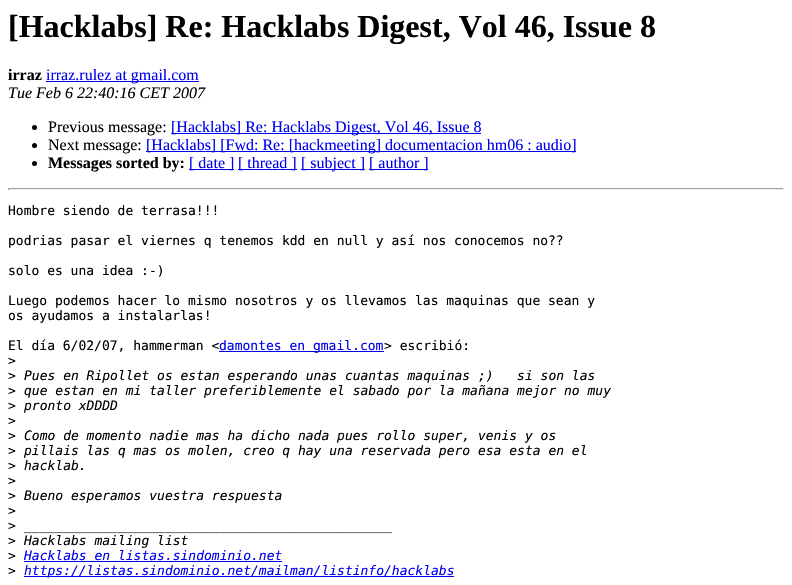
void draw(SkCanvas* canvas) {
  SkPaint paint;
  paint.setAntiAlias(true);
  auto face = [&](const char* family, int weight, float size, bool italic = false) {
    SkFontStyle style(weight, SkFontStyle::kNormal_Width,
      italic ? SkFontStyle::kItalic_Slant : SkFontStyle::kUpright_Slant);
    SkFont result(fontMgr->matchFamilyStyle(family, style), size);
    result.setSubpixel(true);
    return result;
  };
  canvas->clear(0xffffffff);
  paint.setColor(0xff0000ee);
  canvas->drawRect(SkRect::MakeXYWH(46, 81, 153, 1), paint);
  paint.setColor(0xff000000);
  canvas->drawCircle(34.5f, 127.5f, 2.5f, paint);
  paint.setColor(0xff0000ee);
  canvas->drawRect(SkRect::MakeXYWH(171, 133, 310, 1), paint);
  paint.setColor(0xff000000);
  canvas->drawCircle(34.5f, 145.5f, 2.5f, paint);
  paint.setColor(0xff0000ee);
  canvas->drawRect(SkRect::MakeXYWH(146, 151, 430, 1), paint);
  paint.setColor(0xff000000);
  canvas->drawCircle(34.5f, 163.5f, 2.5f, paint);
  {
    const struct { float x, y, w, h; SkColor color; } items[] = {
      {189, 169, 45, 1, 0xff0000ee},
      {238, 169, 59, 1, 0xff0000ee},
      {301, 169, 64, 1, 0xff0000ee},
      {369, 169, 59, 1, 0xff0000ee},
      {8, 188, 776, 1, 0xff9f9f9f},
      {783, 188, 1, 2, 0xffeeeeee},
      {8, 189, 776, 1, 0xffeeeeee},
      {8, 188, 1, 2, 0xff9f9f9f},
      {219, 351, 165, 1, 0xff0000ee},
      {24, 561, 258, 1, 0xff0000ee},
      {24, 576, 430, 1, 0xff0000ee},
    };
    for (auto [x, y, w, h, color] : items) {
      paint.setColor(color);
      canvas->drawRect(SkRect::MakeXYWH(x, y, w, h), paint);
    }
  }
  auto f0 = face("Liberation Serif", 700, 32);
  paint.setColor(0xff000000);
  canvas->drawString("[Hacklabs] Re: Hacklabs Digest, Vol 46, Issue 8", 8, 37, f0, paint);
  auto f1 = face("Liberation Serif", 700, 16);
  canvas->drawString("irraz", 8, 80, f1, paint);
  auto f2 = face("Liberation Serif", 400, 16);
  paint.setColor(0xff0000ee);
  canvas->drawString("irraz.rulez at gmail.com", 46, 80, f2, paint);
  auto f3 = face("Liberation Serif", 400, 16, true);
  paint.setColor(0xff000000);
  canvas->drawString("Tue Feb 6 22:40:16 CET 2007", 8, 98, f3, paint);
  canvas->drawString("Previous message:", 48, 132, f2, paint);
  paint.setColor(0xff0000ee);
  canvas->drawString("[Hacklabs] Re: Hacklabs Digest, Vol 46, Issue 8", 171, 132, f2, paint);
  paint.setColor(0xff000000);
  canvas->drawString("Next message:", 48, 150, f2, paint);
  paint.setColor(0xff0000ee);
  canvas->drawString("[Hacklabs] [Fwd: Re: [hackmeeting] documentacion hm06 : audio]", 146, 150, f2, paint);
  paint.setColor(0xff000000);
  canvas->drawString("Messages sorted by:", 48, 168, f1, paint);
  paint.setColor(0xff0000ee);
  {
    const struct { const char* s; float x, y; } items[] = {
      {"[ date ]", 189, 168},
      {"[ thread ]", 238, 168},
      {"[ subject ]", 301, 168},
      {"[ author ]", 369, 168},
    };
    for (auto [s, x, y] : items) {
      canvas->drawString(s, x, y, f2, paint);
    }
  }
  auto f4 = face("DejaVu Sans Mono", 400, 13);
  paint.setColor(0xff000000);
  {
    const struct { const char* s; float x, y; } items[] = {
      {"Hombre siendo de terrasa!!!", 8, 215},
      {"podrias pasar el viernes q tenemos kdd en null y así nos conocemos no?\077", 8, 245},
      {"solo es una idea :-)", 8, 275},
      {"Luego podemos hacer lo mismo nosotros y os llevamos las maquinas que sean y", 8, 305},
      {"os ayudamos a instalarlas!", 8, 320},
      {"El día 6/02/07, hammerman <", 8, 350},
    };
    for (auto [s, x, y] : items) {
      canvas->drawString(s, x, y, f4, paint);
    }
  }
  paint.setColor(0xff0000ee);
  canvas->drawString("damontes en gmail.com", 219, 350, f4, paint);
  paint.setColor(0xff000000);
  {
    const struct { const char* s; float x, y; } items[] = {
      {"> escribió:", 384, 350},
      {">", 8, 365},
      {">", 8, 380},
    };
    for (auto [s, x, y] : items) {
      canvas->drawString(s, x, y, f4, paint);
    }
  }
  auto f5 = face("DejaVu Sans Mono", 400, 13, true);
  canvas->drawString("Pues en Ripollet os estan esperando unas cuantas maquinas ;)   si son las", 24, 380, f5, paint);
  canvas->drawString(">", 8, 395, f4, paint);
  canvas->drawString("que estan en mi taller preferiblemente el sabado por la mañana mejor no muy", 24, 395, f5, paint);
  canvas->drawString(">", 8, 410, f4, paint);
  canvas->drawString("pronto xDDDD", 24, 410, f5, paint);
  canvas->drawString(">", 8, 425, f4, paint);
  canvas->drawString(">", 8, 440, f4, paint);
  canvas->drawString("Como de momento nadie mas ha dicho nada pues rollo super, venis y os", 24, 440, f5, paint);
  canvas->drawString(">", 8, 455, f4, paint);
  canvas->drawString("pillais las q mas os molen, creo q hay una reservada pero esa esta en el", 24, 455, f5, paint);
  canvas->drawString(">", 8, 470, f4, paint);
  canvas->drawString("hacklab.", 24, 470, f5, paint);
  canvas->drawString(">", 8, 485, f4, paint);
  canvas->drawString(">", 8, 500, f4, paint);
  canvas->drawString("Bueno esperamos vuestra respuesta", 24, 500, f5, paint);
  canvas->drawString(">", 8, 515, f4, paint);
  canvas->drawString(">", 8, 530, f4, paint);
  canvas->drawString("_______________________________________________", 24, 530, f5, paint);
  canvas->drawString(">", 8, 545, f4, paint);
  canvas->drawString("Hacklabs mailing list", 24, 545, f5, paint);
  canvas->drawString(">", 8, 560, f4, paint);
  paint.setColor(0xff0000ee);
  canvas->drawString("Hacklabs en listas.sindominio.net", 24, 560, f5, paint);
  paint.setColor(0xff000000);
  canvas->drawString(">", 8, 575, f4, paint);
  paint.setColor(0xff0000ee);
  canvas->drawString("https://listas.sindominio.net/mailman/listinfo/hacklabs", 24, 575, f5, paint);
}
